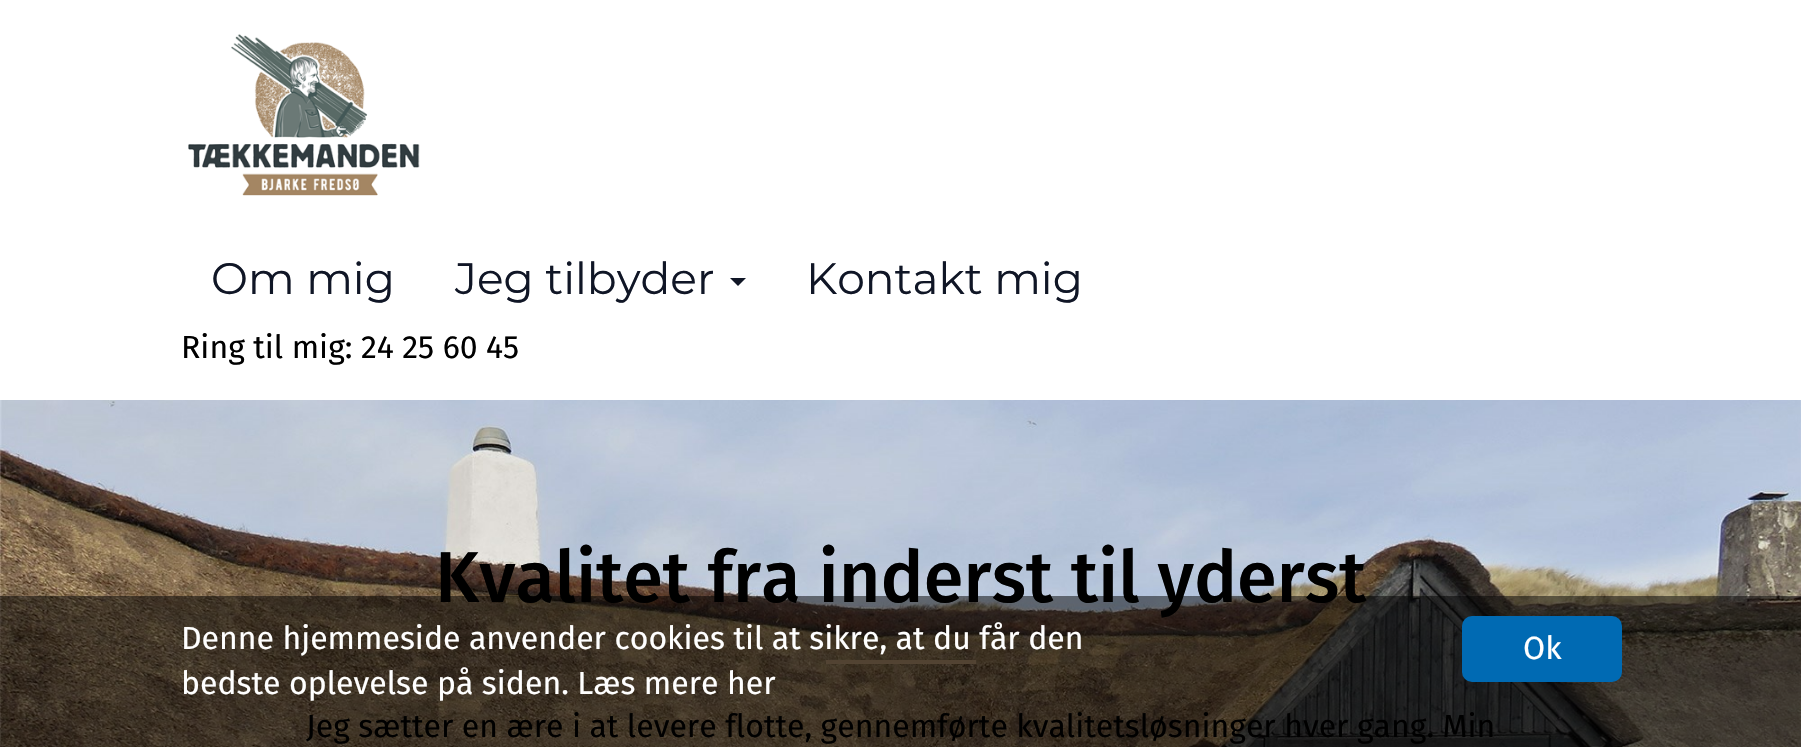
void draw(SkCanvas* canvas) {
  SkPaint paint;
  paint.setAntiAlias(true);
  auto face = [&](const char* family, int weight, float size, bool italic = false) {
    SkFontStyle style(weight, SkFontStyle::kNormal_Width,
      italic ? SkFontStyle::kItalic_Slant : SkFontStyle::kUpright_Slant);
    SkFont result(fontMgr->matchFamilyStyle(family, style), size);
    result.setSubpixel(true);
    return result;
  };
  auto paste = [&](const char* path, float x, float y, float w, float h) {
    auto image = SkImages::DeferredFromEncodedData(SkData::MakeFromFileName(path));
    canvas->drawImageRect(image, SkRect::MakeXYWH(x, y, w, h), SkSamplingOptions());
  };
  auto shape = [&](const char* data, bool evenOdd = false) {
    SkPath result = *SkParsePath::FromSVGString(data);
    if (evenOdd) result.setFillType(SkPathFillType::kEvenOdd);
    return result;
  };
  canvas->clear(0xffffffff);
  paste("img/1.png", 188, 34, 232, 162);
  paint.setColor(0xff101626);
  canvas->drawPath(shape("M730 278H746L738 286Z"), paint);
  paste("img/2.png", 0, 400, 1801, 347);
  paste("img/3.png", 826, 660, 150, 4);
  auto f0 = face("Montserrat", 400, 44);
  {
    const struct { const char* s; float x, y; } items[] = {
      {"Om mig", 211, 294},
      {"Jeg tilbyder", 455, 294},
      {"Kontakt mig", 806, 294},
    };
    for (auto [s, x, y] : items) {
      canvas->drawString(s, x, y, f0, paint);
    }
  }
  auto f1 = face("Fira Sans", 400, 32);
  paint.setColor(0xff000000);
  canvas->drawString("Ring til mig: 24 25 60 45", 181, 358, f1, paint);
  auto f2 = face("Fira Sans", 500, 72);
  canvas->drawString("Kvalitet fra inderst til yderst", 435, 602, f2, paint);
  canvas->drawString("Jeg sætter en ære i at levere flotte, gennemførte kvalitetsløsninger hver gang. Min", 306, 737, f1, paint);
  paint.setColor(0x80000000);
  canvas->drawRect(SkRect::MakeXYWH(0, 596, 1801, 151), paint);
  paint.setColor(0xffffffff);
  canvas->drawString("Denne hjemmeside anvender cookies til at sikre, at du får den", 181, 649, f1, paint);
  canvas->drawString("bedste oplevelse på siden. Læs mere her", 181, 694, f1, paint);
  paint.setColor(0xff006ab3);
  canvas->drawRoundRect(SkRect::MakeXYWH(1462, 616, 160, 66), 10, 10, paint);
  paint.setColor(0xffffffff);
  canvas->drawString("Ok", 1523, 659, f1, paint);
}
